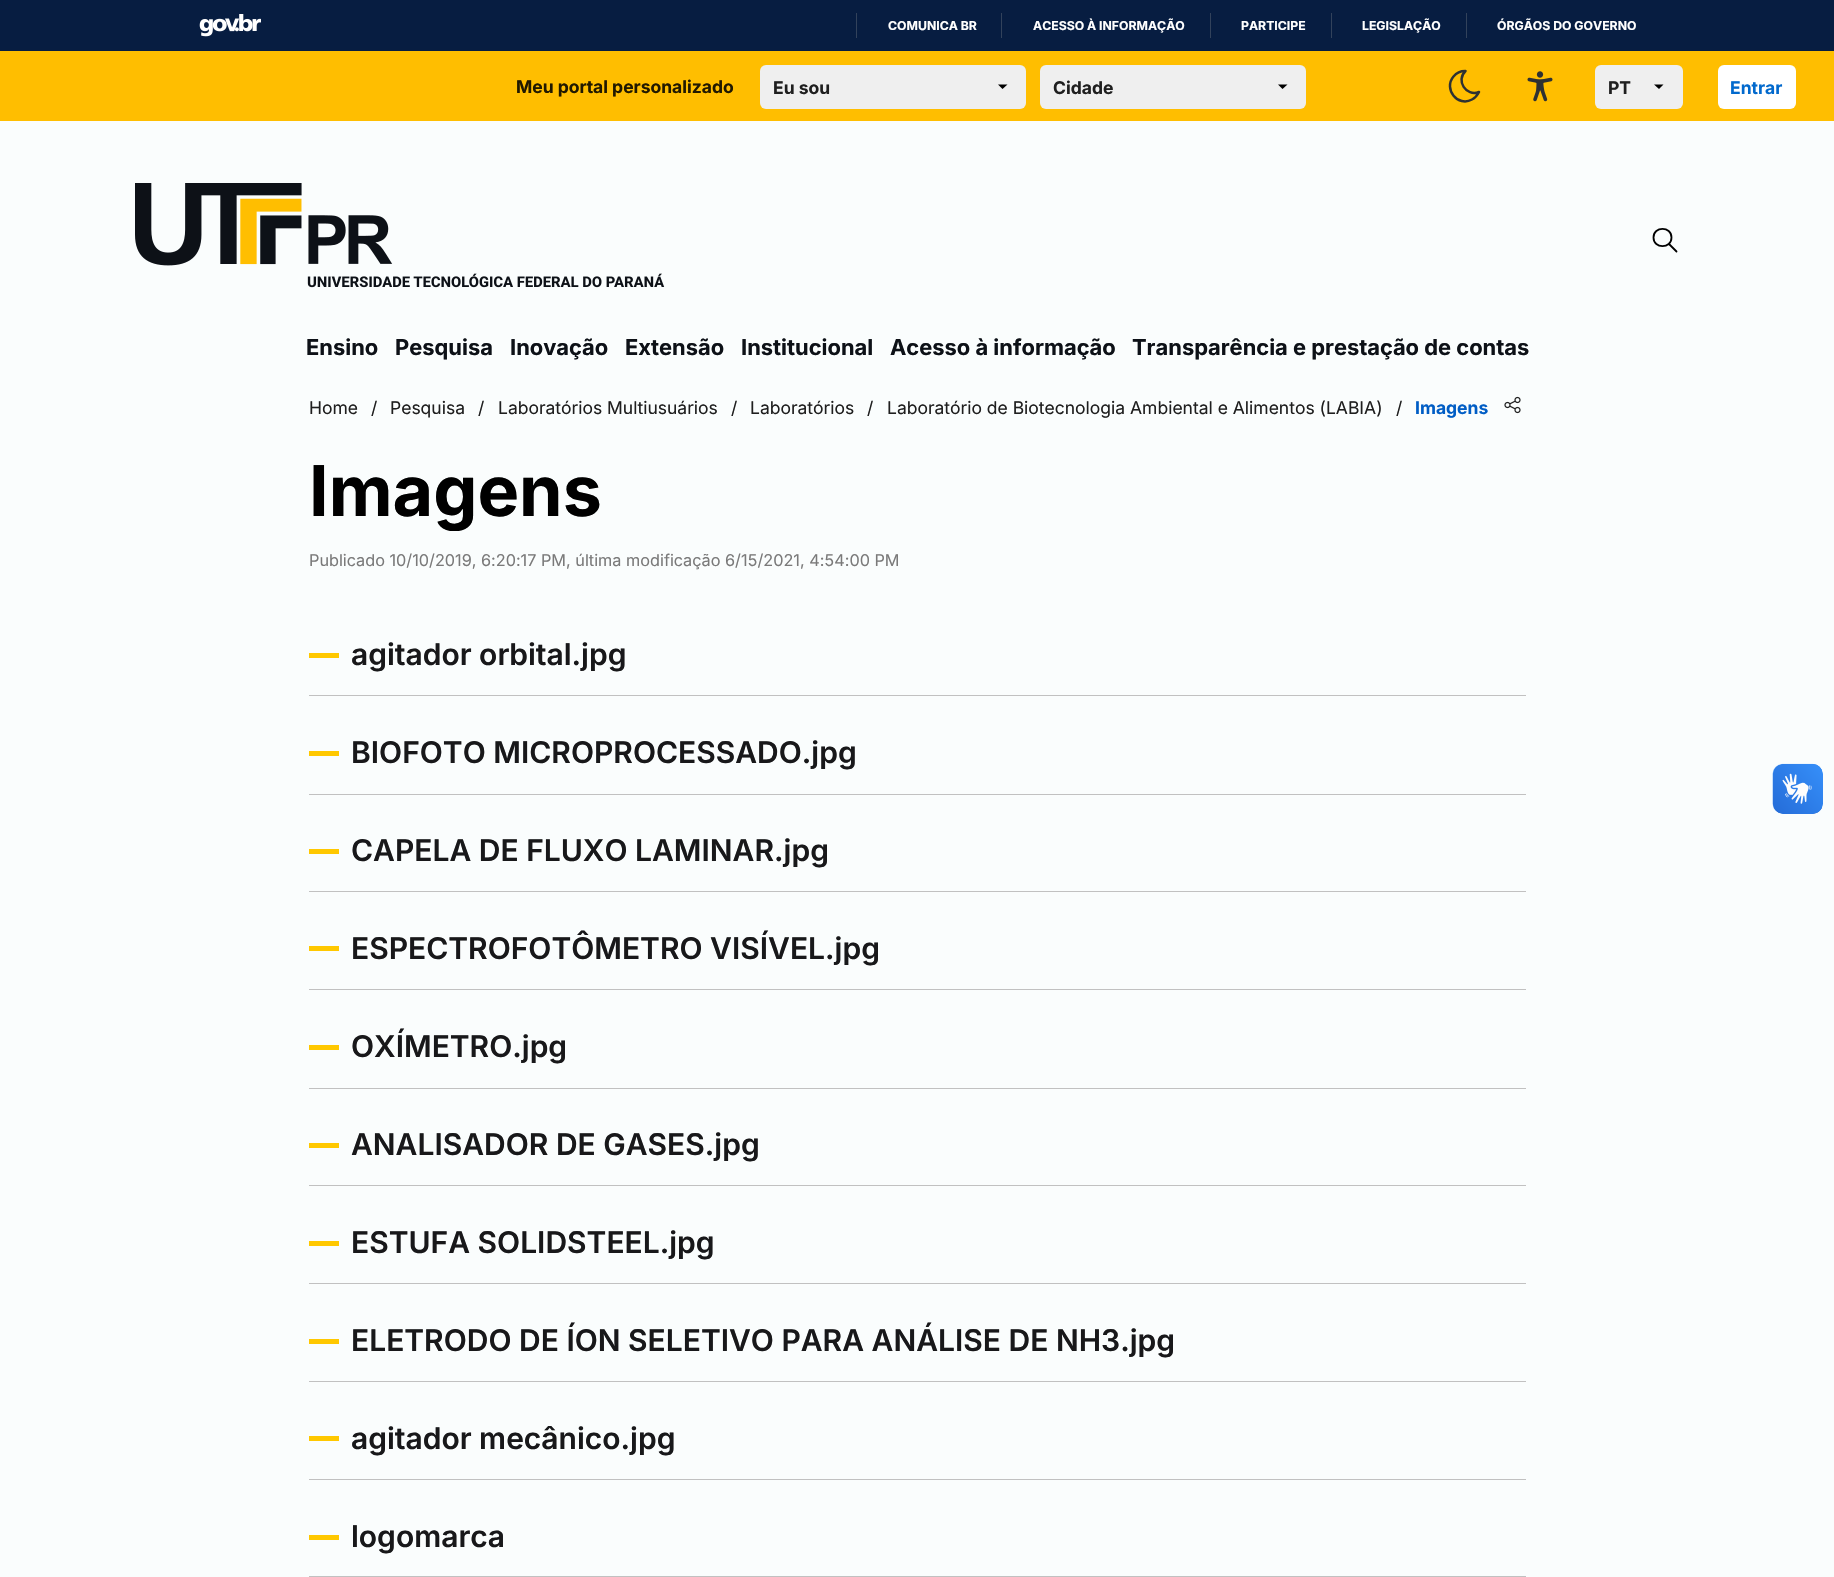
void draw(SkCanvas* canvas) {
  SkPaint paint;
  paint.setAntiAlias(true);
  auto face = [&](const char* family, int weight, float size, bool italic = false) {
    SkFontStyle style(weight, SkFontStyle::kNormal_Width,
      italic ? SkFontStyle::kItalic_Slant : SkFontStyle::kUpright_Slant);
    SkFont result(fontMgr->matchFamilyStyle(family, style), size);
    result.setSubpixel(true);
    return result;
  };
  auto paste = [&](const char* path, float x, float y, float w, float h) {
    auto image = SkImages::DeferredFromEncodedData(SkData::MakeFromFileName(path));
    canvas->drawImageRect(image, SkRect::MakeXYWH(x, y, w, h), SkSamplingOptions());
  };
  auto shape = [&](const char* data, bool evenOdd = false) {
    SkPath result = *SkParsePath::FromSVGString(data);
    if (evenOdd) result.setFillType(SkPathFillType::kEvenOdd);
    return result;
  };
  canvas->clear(0xfffafdfd);
  paint.setColor(0xff071d41);
  canvas->drawRect(SkRect::MakeXYWH(0, 0, 1834, 51), paint);
  paste("img/1.png", 199, 14, 62, 23);
  {
    const struct { float x, y, w, h; SkColor color; } items[] = {
      {856, 13, 1, 25, 0xff32425b},
      {1001, 13, 1, 25, 0xff32425b},
      {1210, 13, 1, 25, 0xff32425b},
      {1331, 13, 1, 25, 0xff32425b},
      {1466, 13, 1, 25, 0xff32425b},
      {0, 51, 1834, 70, 0xffffbe00},
    };
    for (auto [x, y, w, h, color] : items) {
      paint.setColor(color);
      canvas->drawRect(SkRect::MakeXYWH(x, y, w, h), paint);
    }
  }
  paint.setColor(0xffefefef);
  canvas->drawRoundRect(SkRect::MakeXYWH(760, 65, 266, 44), 6, 6, paint);
  paint.setColor(0xff000000);
  canvas->drawPath(shape("M998 84.5L1002.5 89L1007.5 84.5"), paint);
  paint.setColor(0xffefefef);
  canvas->drawRoundRect(SkRect::MakeXYWH(1040, 65, 266, 44), 6, 6, paint);
  paint.setColor(0xff000000);
  canvas->drawPath(shape("M1278 84.5L1282.5 89L1287.5 84.5"), paint);
  paint.setStroke(true);
  paint.setStrokeWidth(2.5f);
  paint.setStrokeCap(SkPaint::kRound_Cap);
  paint.setStrokeJoin(SkPaint::kRound_Join);
  paint.setColor(0xff2e3132);
  canvas->drawPath(shape("M1465 71H1465.5C1455.5 80.5 1466 97 1479 92C1477.5 95 1475 98 1472 99.5C1458 107.5 1443 89 1453.5 76.5C1456.5 73 1460.5 71 1465 71Z"), paint);
  paste("img/2.png", 1527, 71, 26, 31);
  paint.setStroke(false);
  paint.setColor(0xffefefef);
  canvas->drawRoundRect(SkRect::MakeXYWH(1595, 65, 88, 44), 6, 6, paint);
  paint.setColor(0xff000000);
  canvas->drawPath(shape("M1654 84.5L1659 89L1663.5 84.5"), paint);
  paint.setColor(0xffffffff);
  canvas->drawRoundRect(SkRect::MakeXYWH(1718, 65, 78, 44), 6, 6, paint);
  paste("img/3.png", 135, 183, 530, 105);
  paint.setStroke(true);
  paint.setStrokeWidth(1.8f);
  paint.setColor(0xff000000);
  canvas->drawPath(shape("M1676.5 251.5L1669 244M1653.5 237.5C1653.5 249 1671.5 249 1671.5 237.5C1671.5 226 1653.5 226 1653.5 237.5Z"), paint);
  paste("img/4.png", 1504, 396, 17, 18);
  paint.setStroke(false);
  {
    const struct { float x, y, w, h; SkColor color; } items[] = {
      {309, 653, 30, 5, 0xffffc800},
      {309, 695, 1217, 1, 0xffc1c1c1},
      {309, 751, 30, 5, 0xffffc800},
      {309, 794, 1217, 1, 0xffc1c1c1},
      {309, 849, 30, 5, 0xffffc800},
      {309, 891, 1217, 1, 0xffc1c1c1},
      {309, 946, 30, 5, 0xffffc800},
      {309, 989, 1217, 1, 0xffc1c1c1},
      {309, 1045, 30, 5, 0xffffc800},
      {309, 1088, 1217, 1, 0xffc1c1c1},
      {309, 1143, 30, 5, 0xffffc800},
      {309, 1185, 1217, 1, 0xffc1c1c1},
      {309, 1241, 30, 5, 0xffffc800},
      {309, 1283, 1217, 1, 0xffc1c1c1},
      {309, 1339, 30, 5, 0xffffc800},
      {309, 1381, 1217, 1, 0xffc1c1c1},
      {309, 1436, 30, 5, 0xffffc800},
      {309, 1479, 1217, 1, 0xffc1c1c1},
      {309, 1535, 30, 5, 0xffffc800},
      {309, 1576, 1217, 1, 0xffc1c1c1},
    };
    for (auto [x, y, w, h, color] : items) {
      paint.setColor(color);
      canvas->drawRect(SkRect::MakeXYWH(x, y, w, h), paint);
    }
  }
  paste("img/5.png", 1772, 763, 51, 51);
  paste("img/6.png", 1773, 764, 50, 50);
  auto f0 = face("Inter", 700, 12.25f);
  paint.setColor(0xffffffff);
  {
    const struct { const char* s; float x, y; } items[] = {
      {"COMUNICA BR", 888, 30},
      {"ACESSO À INFORMAÇÃO", 1033, 30},
      {"PARTICIPE", 1241, 30},
      {"LEGISLAÇÃO", 1362, 30},
      {"ÓRGÃOS DO GOVERNO", 1497, 30},
    };
    for (auto [s, x, y] : items) {
      canvas->drawString(s, x, y, f0, paint);
    }
  }
  auto f1 = face("Inter", 700, 17.5f);
  paint.setColor(0xff211900);
  canvas->drawString("Meu portal personalizado", 516, 93, f1, paint);
  paint.setColor(0xff1f1f1f);
  {
    const struct { const char* s; float x, y; } items[] = {
      {"Eu sou", 773, 94},
      {"Cidade", 1053, 94},
      {"PT", 1608, 94},
    };
    for (auto [s, x, y] : items) {
      canvas->drawString(s, x, y, f1, paint);
    }
  }
  paint.setColor(0xff0169cd);
  canvas->drawString("Entrar", 1730, 94, f1, paint);
  auto f2 = face("Inter", 700, 21.9f);
  paint.setColor(0xff0d1117);
  {
    const struct { const char* s; float x, y; } items[] = {
      {"Ensino", 306, 355},
      {"Pesquisa", 395, 355},
      {"Inovação", 510, 355},
      {"Extensão", 625, 355},
      {"Institucional", 741, 355},
      {"Acesso à informação", 890, 355},
      {"Transparência e prestação de contas", 1132, 355},
    };
    for (auto [s, x, y] : items) {
      canvas->drawString(s, x, y, f2, paint);
    }
  }
  auto f3 = face("Inter", 400, 17.5f);
  paint.setColor(0xff1f1f1f);
  {
    const struct { const char* s; float x, y; } items[] = {
      {"Home", 309, 414},
      {"/", 371, 414},
      {"Pesquisa", 390, 414},
      {"/", 478, 414},
      {"Laboratórios Multiusuários", 498, 414},
      {"/", 731, 414},
      {"Laboratórios", 750, 414},
      {"/", 867, 414},
      {"Laboratório de Biotecnologia Ambiental e Alimentos (LABIA)", 887, 414},
      {"/", 1396, 414},
    };
    for (auto [s, x, y] : items) {
      canvas->drawString(s, x, y, f3, paint);
    }
  }
  paint.setColor(0xff005dc5);
  canvas->drawString("Imagens", 1415, 414, f1, paint);
  auto f4 = face("Inter", 700, 70);
  paint.setColor(0xff000000);
  canvas->drawString("Imagens", 309, 516, f4, paint);
  auto f5 = face("Inter", 400, 16.25f);
  paint.setColor(0xff7a7a7a);
  canvas->drawString("Publicado 10/10/2019, 6:20:17 PM, última modificação 6/15/2021, 4:54:00 PM", 309, 566, f5, paint);
  auto f6 = face("Inter", 600, 30);
  paint.setColor(0xff18181a);
  {
    const struct { const char* s; float x, y; } items[] = {
      {"agitador orbital.jpg", 351, 665},
      {"BIOFOTO MICROPROCESSADO.jpg", 351, 763},
      {"CAPELA DE FLUXO LAMINAR.jpg", 351, 861},
      {"ESPECTROFOTÔMETRO VISÍVEL.jpg", 351, 959},
      {"OXÍMETRO.jpg", 351, 1057},
      {"ANALISADOR DE GASES.jpg", 351, 1155},
      {"ESTUFA SOLIDSTEEL.jpg", 351, 1253},
      {"ELETRODO DE ÍON SELETIVO PARA ANÁLISE DE NH3.jpg", 351, 1351},
      {"agitador mecânico.jpg", 351, 1449},
      {"logomarca", 351, 1547},
    };
    for (auto [s, x, y] : items) {
      canvas->drawString(s, x, y, f6, paint);
    }
  }
}
